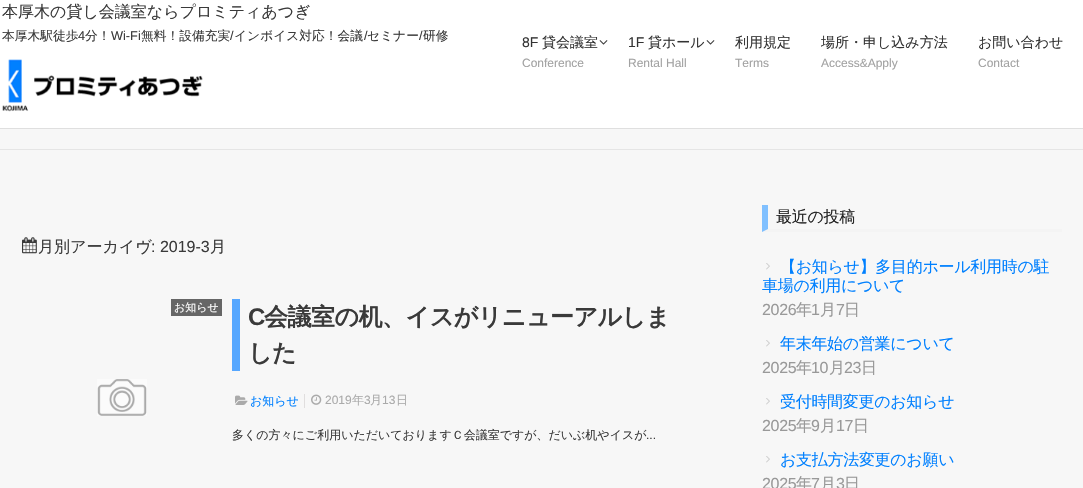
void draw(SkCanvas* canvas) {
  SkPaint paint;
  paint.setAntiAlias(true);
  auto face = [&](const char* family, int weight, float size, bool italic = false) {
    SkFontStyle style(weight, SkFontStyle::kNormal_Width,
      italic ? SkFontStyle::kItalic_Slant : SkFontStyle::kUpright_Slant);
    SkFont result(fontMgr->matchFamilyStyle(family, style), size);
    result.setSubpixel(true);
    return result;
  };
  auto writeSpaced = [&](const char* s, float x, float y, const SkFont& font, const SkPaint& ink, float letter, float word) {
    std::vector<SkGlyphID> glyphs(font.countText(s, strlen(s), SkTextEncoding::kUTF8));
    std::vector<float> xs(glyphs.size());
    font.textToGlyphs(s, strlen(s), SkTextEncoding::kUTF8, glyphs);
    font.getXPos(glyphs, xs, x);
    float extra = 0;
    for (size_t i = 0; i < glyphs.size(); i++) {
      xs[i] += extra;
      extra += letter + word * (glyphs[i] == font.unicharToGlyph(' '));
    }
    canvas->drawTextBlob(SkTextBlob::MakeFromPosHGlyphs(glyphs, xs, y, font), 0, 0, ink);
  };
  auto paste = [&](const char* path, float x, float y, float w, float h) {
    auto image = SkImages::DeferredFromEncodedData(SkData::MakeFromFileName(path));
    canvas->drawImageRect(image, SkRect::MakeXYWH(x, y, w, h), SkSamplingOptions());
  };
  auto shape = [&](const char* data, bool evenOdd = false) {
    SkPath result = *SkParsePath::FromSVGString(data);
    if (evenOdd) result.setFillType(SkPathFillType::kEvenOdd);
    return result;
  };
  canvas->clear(0xfff7f7f7);
  paint.setColor(0xffffffff);
  canvas->drawRect(SkRect::MakeXYWH(0, 0, 1083, 128), paint);
  paint.setColor(0xffdfdfdf);
  canvas->drawRect(SkRect::MakeXYWH(0, 128, 1083, 1), paint);
  paste("img/1.png", 2, 59, 201, 53);
  paste("img/2.png", 599, 40, 9, 5);
  paste("img/2.png", 706, 40, 9, 5);
  paint.setColor(0xffe5e5e5);
  canvas->drawRect(SkRect::MakeXYWH(0, 149, 1083, 1), paint);
  paste("img/3.png", 22, 237, 15, 17);
  paint.setColor(0xff666666);
  canvas->drawRect(SkRect::MakeXYWH(171, 299, 51, 17), paint);
  paste("img/4.png", 97, 379, 50, 37);
  paint.setColor(0xff56a7ff);
  canvas->drawRect(SkRect::MakeXYWH(232, 299, 8, 72), paint);
  paint.setColor(0xffe0dede);
  canvas->drawRect(SkRect::MakeXYWH(304, 394, 1, 14), paint);
  paste("img/5.png", 235, 395, 13, 10);
  paste("img/6.png", 311, 394, 11, 11);
  paint.setColor(0xfff4f4f4);
  canvas->drawPath(shape("M1062 232H762L768 229H1062Z"), paint);
  paint.setColor(0xff80c0ff);
  canvas->drawPath(shape("M762 232V205H768V229Z"), paint);
  paste("img/7.png", 766, 263, 4, 7);
  paste("img/7.png", 766, 340, 4, 7);
  paste("img/7.png", 766, 398, 4, 7);
  paste("img/7.png", 766, 456, 4, 7);
  auto f0 = face("WenQuanYi Zen Hei", 500, 16);
  paint.setColor(0xff3a3a3a);
  canvas->drawString("本厚木の貸し会議室ならプロミティあつぎ", 2, 17, f0, paint);
  auto f1 = face("WenQuanYi Zen Hei", 500, 12.75f);
  canvas->drawString("本厚木駅徒歩", 2, 40, f1, paint);
  auto f2 = face("Liberation Sans", 400, 12.75f);
  canvas->drawString("Wi-Fi", 111, 40, f2, paint);
  canvas->drawString("無料！設備充実 インボイス対応！会議", 141, 40, f1, paint);
  canvas->drawString("4", 78, 40, f2, paint);
  canvas->drawString("分！", 85, 40, f1, paint);
  canvas->drawString("/", 230, 40, f2, paint);
  canvas->drawString("/", 364, 40, f2, paint);
  canvas->drawString("セミナー", 367, 40, f1, paint);
  canvas->drawString("/", 419, 40, f2, paint);
  canvas->drawString("研修", 423, 40, f1, paint);
  auto f3 = face("Liberation Sans", 400, 14);
  paint.setColor(0xff333333);
  canvas->drawString("8F", 522, 47, f3, paint);
  auto f4 = face("WenQuanYi Zen Hei", 500, 14);
  canvas->drawString("貸会議室", 542, 47, f4, paint);
  auto f5 = face("Liberation Sans", 400, 12);
  paint.setColor(0xffa2a2a2);
  canvas->drawString("Conference", 522, 67, f5, paint);
  paint.setColor(0xff333333);
  canvas->drawString("1F", 628, 47, f3, paint);
  canvas->drawString("貸ホール", 648, 47, f4, paint);
  paint.setColor(0xffa2a2a2);
  canvas->drawString("Rental Hall", 628, 67, f5, paint);
  paint.setColor(0xff333333);
  canvas->drawString("利用規定", 735, 47, f4, paint);
  paint.setColor(0xffa2a2a2);
  canvas->drawString("Terms", 735, 67, f5, paint);
  paint.setColor(0xff333333);
  canvas->drawString("場所・申し込み方法", 821, 47, f4, paint);
  paint.setColor(0xffa2a2a2);
  canvas->drawString("Access&Apply", 821, 67, f5, paint);
  paint.setColor(0xff333333);
  canvas->drawString("お問い合わせ", 978, 47, f4, paint);
  paint.setColor(0xffa2a2a2);
  canvas->drawString("Contact", 978, 67, f5, paint);
  paint.setColor(0xff3a3a3a);
  canvas->drawString("月別アーカイヴ", 38, 252, f0, paint);
  auto f6 = face("Liberation Sans", 400, 16);
  canvas->drawString(": 2019-3", 151, 252, f6, paint);
  canvas->drawString("月", 210, 252, f0, paint);
  auto f7 = face("WenQuanYi Zen Hei", 500, 11);
  paint.setColor(0xffffffff);
  canvas->drawString("お知らせ", 174, 311, f7, paint);
  auto f8 = face("Liberation Sans", 700, 24);
  paint.setColor(0xff3a3a3a);
  writeSpaced("C", 248, 325, f8, paint, -0.5f, 0);
  auto f9 = face("WenQuanYi Zen Hei", 700, 24);
  writeSpaced("会議室の机、イスがリニューアルしま", 264, 325, f9, paint, -0.5f, 0);
  writeSpaced("した", 248, 361, f9, paint, -0.5f, 0);
  auto f10 = face("WenQuanYi Zen Hei", 500, 12);
  paint.setColor(0xff0080ff);
  canvas->drawString("お知らせ", 250, 405, f10, paint);
  paint.setColor(0xffaaaaaa);
  canvas->drawString("2019", 325, 404, f5, paint);
  canvas->drawString("年", 352, 404, f10, paint);
  canvas->drawString("3", 364, 404, f5, paint);
  canvas->drawString("月", 370, 404, f10, paint);
  canvas->drawString("13", 382, 404, f5, paint);
  canvas->drawString("日", 396, 404, f10, paint);
  paint.setColor(0xff3a3a3a);
  canvas->drawString("多くの方々にご利用いただいておりますＣ会議室ですが、だいぶ机やイスが", 232, 439, f10, paint);
  canvas->drawString("...", 646, 439, f5, paint);
  paint.setColor(0xff222222);
  writeSpaced("最近の投稿", 776, 222, f0, paint, -0.3f, 0);
  paint.setColor(0xff0080ff);
  writeSpaced("【お知らせ】多目的ホール利用時の駐", 780, 272, f0, paint, -0.3f, 0);
  writeSpaced("車場の利用について", 762, 291, f0, paint, -0.3f, 0);
  paint.setColor(0xff999999);
  writeSpaced("2026", 762, 315, f6, paint, -0.3f, 0);
  writeSpaced("年", 796, 315, f0, paint, -0.3f, 0);
  writeSpaced("1", 811, 315, f6, paint, -0.3f, 0);
  writeSpaced("月", 820, 315, f0, paint, -0.3f, 0);
  writeSpaced("7", 836, 315, f6, paint, -0.3f, 0);
  writeSpaced("日", 844, 315, f0, paint, -0.3f, 0);
  paint.setColor(0xff0080ff);
  writeSpaced("年末年始の営業について", 780, 349, f0, paint, -0.3f, 0);
  paint.setColor(0xff999999);
  writeSpaced("2025", 762, 373, f6, paint, -0.3f, 0);
  writeSpaced("年", 796, 373, f0, paint, -0.3f, 0);
  writeSpaced("10", 811, 373, f6, paint, -0.3f, 0);
  writeSpaced("月", 829, 373, f0, paint, -0.3f, 0);
  writeSpaced("23", 844, 373, f6, paint, -0.3f, 0);
  writeSpaced("日", 861, 373, f0, paint, -0.3f, 0);
  paint.setColor(0xff0080ff);
  writeSpaced("受付時間変更のお知らせ", 780, 407, f0, paint, -0.3f, 0);
  paint.setColor(0xff999999);
  writeSpaced("2025", 762, 431, f6, paint, -0.3f, 0);
  writeSpaced("年", 796, 431, f0, paint, -0.3f, 0);
  writeSpaced("9", 811, 431, f6, paint, -0.3f, 0);
  writeSpaced("月", 820, 431, f0, paint, -0.3f, 0);
  writeSpaced("17", 836, 431, f6, paint, -0.3f, 0);
  writeSpaced("日", 853, 431, f0, paint, -0.3f, 0);
  paint.setColor(0xff0080ff);
  writeSpaced("お支払方法変更のお願い", 780, 465, f0, paint, -0.3f, 0);
  paint.setColor(0xff999999);
  writeSpaced("2025", 762, 489, f6, paint, -0.3f, 0);
  writeSpaced("年", 796, 489, f0, paint, -0.3f, 0);
  writeSpaced("7", 811, 489, f6, paint, -0.3f, 0);
  writeSpaced("月", 820, 489, f0, paint, -0.3f, 0);
  writeSpaced("3", 836, 489, f6, paint, -0.3f, 0);
  writeSpaced("日", 844, 489, f0, paint, -0.3f, 0);
}
